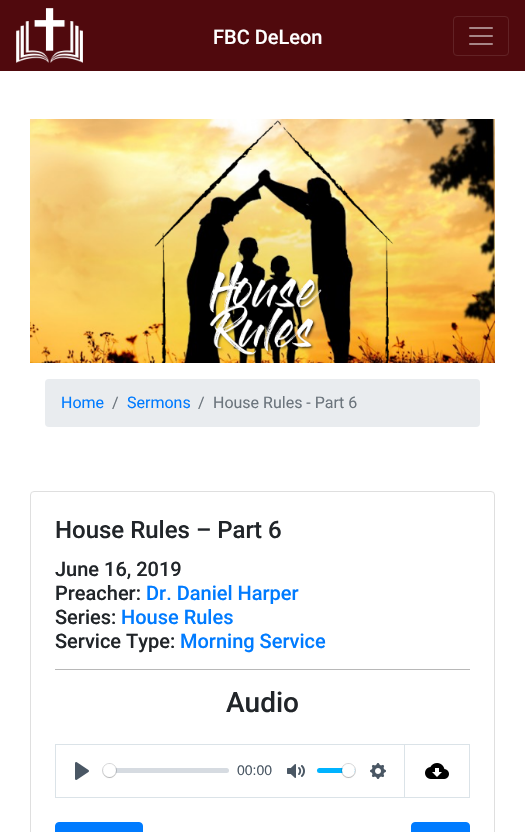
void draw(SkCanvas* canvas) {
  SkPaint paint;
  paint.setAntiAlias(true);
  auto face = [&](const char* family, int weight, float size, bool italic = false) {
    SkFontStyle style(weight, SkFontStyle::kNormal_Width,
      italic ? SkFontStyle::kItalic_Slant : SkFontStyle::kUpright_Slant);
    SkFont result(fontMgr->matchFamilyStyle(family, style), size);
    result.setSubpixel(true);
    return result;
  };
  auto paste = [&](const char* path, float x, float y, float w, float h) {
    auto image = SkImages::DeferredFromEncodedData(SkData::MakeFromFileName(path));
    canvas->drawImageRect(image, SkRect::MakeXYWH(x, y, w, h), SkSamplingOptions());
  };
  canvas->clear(0xffffffff);
  paint.setColor(0xff50090d);
  canvas->drawRect(SkRect::MakeXYWH(0, 0, 525, 71), paint);
  paste("img/1.png", 16, 8, 67, 55);
  paint.setStroke(true);
  paint.setStrokeWidth(1);
  paint.setColor(0xff622225);
  canvas->drawRoundRect(SkRect::MakeXYWH(453.5f, 16.5f, 55, 39), 3.5f, 3.5f, paint);
  paste("img/2.png", 469, 27, 24, 18);
  paste("img/3.png", 30, 119, 465, 244);
  paint.setStroke(false);
  paint.setColor(0xffe9ecef);
  canvas->drawRoundRect(SkRect::MakeXYWH(45, 379, 435, 48), 4, 4, paint);
  paint.setStroke(true);
  paint.setColor(0xffdfdfdf);
  canvas->drawRoundRect(SkRect::MakeXYWH(30.5f, 491.5f, 464, 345), 3.5f, 3.5f, paint);
  paint.setStroke(false);
  paint.setColor(0xffb8b8b8);
  canvas->drawRect(SkRect::MakeXYWH(55, 669, 415, 1), paint);
  paint.setStroke(true);
  paint.setColor(0xffdbe3e8);
  canvas->drawRect(SkRect::MakeXYWH(55.5f, 744.5f, 349, 53), paint);
  paste("img/4.png", 75, 762, 14, 18);
  paint.setStroke(false);
  paint.setColor(0xa8c1c9d1);
  canvas->drawRoundRect(SkRect::MakeXYWH(103, 768, 126, 5), 2.5f, 2.5f, paint);
  paint.setStroke(true);
  paint.setColor(0x3323292f);
  canvas->drawCircle(109.5f, 770.5f, 7, paint);
  paint.setStroke(false);
  paint.setColor(0x26000000);
  paint.setMaskFilter(SkMaskFilter::MakeBlur(kNormal_SkBlurStyle, 0.5f));
  canvas->drawRoundRect(SkRect::MakeXYWH(103, 765, 13, 13), 6.5f, 6.5f, paint);
  paint.setMaskFilter(nullptr);
  paint.setColor(0xffffffff);
  canvas->drawCircle(109.5f, 770.5f, 6.5f, paint);
  paste("img/5.png", 287, 764, 18, 14);
  paint.setColor(0xff00b3ff);
  canvas->drawRoundRect(SkRect::MakeXYWH(317, 768, 38, 5), 2.5f, 2.5f, paint);
  paint.setStroke(true);
  paint.setColor(0x3323292f);
  canvas->drawCircle(348.5f, 770.5f, 7, paint);
  paint.setStroke(false);
  paint.setColor(0x26000000);
  paint.setMaskFilter(SkMaskFilter::MakeBlur(kNormal_SkBlurStyle, 0.5f));
  canvas->drawRoundRect(SkRect::MakeXYWH(342, 765, 13, 13), 6.5f, 6.5f, paint);
  paint.setMaskFilter(nullptr);
  paint.setColor(0xffffffff);
  canvas->drawCircle(348.5f, 770.5f, 6.5f, paint);
  paste("img/6.png", 370, 763, 16, 16);
  {
    const struct { float x, y, w, h; SkColor color; } items[] = {
      {405, 744, 65, 1, 0xffdbe3e8},
      {469, 744, 1, 54, 0xffdbe3e8},
      {405, 797, 65, 1, 0xffdbe3e8},
    };
    for (auto [x, y, w, h, color] : items) {
      paint.setColor(color);
      canvas->drawRect(SkRect::MakeXYWH(x, y, w, h), paint);
    }
  }
  paste("img/7.png", 425, 763, 24, 16);
  paint.setColor(0xff007bff);
  canvas->drawRoundRect(SkRect::MakeXYWH(55.5f, 822.5f, 87, 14), 3.5f, 3.5f, paint);
  paint.setStroke(true);
  canvas->drawRoundRect(SkRect::MakeXYWH(55.5f, 822.5f, 87, 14), 3.5f, 3.5f, paint);
  paint.setStroke(false);
  canvas->drawRoundRect(SkRect::MakeXYWH(411.5f, 822.5f, 58, 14), 3.5f, 3.5f, paint);
  paint.setStroke(true);
  canvas->drawRoundRect(SkRect::MakeXYWH(411.5f, 822.5f, 58, 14), 3.5f, 3.5f, paint);
  auto f0 = face("Roboto", 500, 20);
  paint.setStroke(false);
  paint.setColor(0xffffffff);
  canvas->drawString("FBC DeLeon", 213, 44, f0, paint);
  auto f1 = face("Roboto", 400, 16);
  paint.setColor(0xff007bff);
  canvas->drawString("Home", 61, 408, f1, paint);
  paint.setColor(0xff6c757d);
  canvas->drawString("/", 112, 408, f1, paint);
  paint.setColor(0xff007bff);
  canvas->drawString("Sermons", 127, 408, f1, paint);
  paint.setColor(0xff6c757d);
  canvas->drawString("/", 198, 408, f1, paint);
  canvas->drawString("House Rules - Part 6", 213, 408, f1, paint);
  auto f2 = face("Roboto", 500, 24);
  paint.setColor(0xff212529);
  canvas->drawString("House Rules – Part 6", 55, 538, f2, paint);
  canvas->drawString("June 16, 2019", 55, 576, f0, paint);
  canvas->drawString("Preacher:", 55, 600, f0, paint);
  paint.setColor(0xff007bff);
  canvas->drawString("Dr. Daniel Harper", 146, 600, f0, paint);
  paint.setColor(0xff212529);
  canvas->drawString("Series:", 55, 624, f0, paint);
  paint.setColor(0xff007bff);
  canvas->drawString("House Rules", 121, 624, f0, paint);
  paint.setColor(0xff212529);
  canvas->drawString("Service Type:", 55, 648, f0, paint);
  paint.setColor(0xff007bff);
  canvas->drawString("Morning Service", 180, 648, f0, paint);
  auto f3 = face("Roboto", 500, 28);
  paint.setColor(0xff212529);
  canvas->drawString("Audio", 226, 712, f3, paint);
  auto f4 = face("Liberation Sans", 400, 14);
  paint.setColor(0xff4a5764);
  canvas->drawString("00:00", 237, 775, f4, paint);
}
